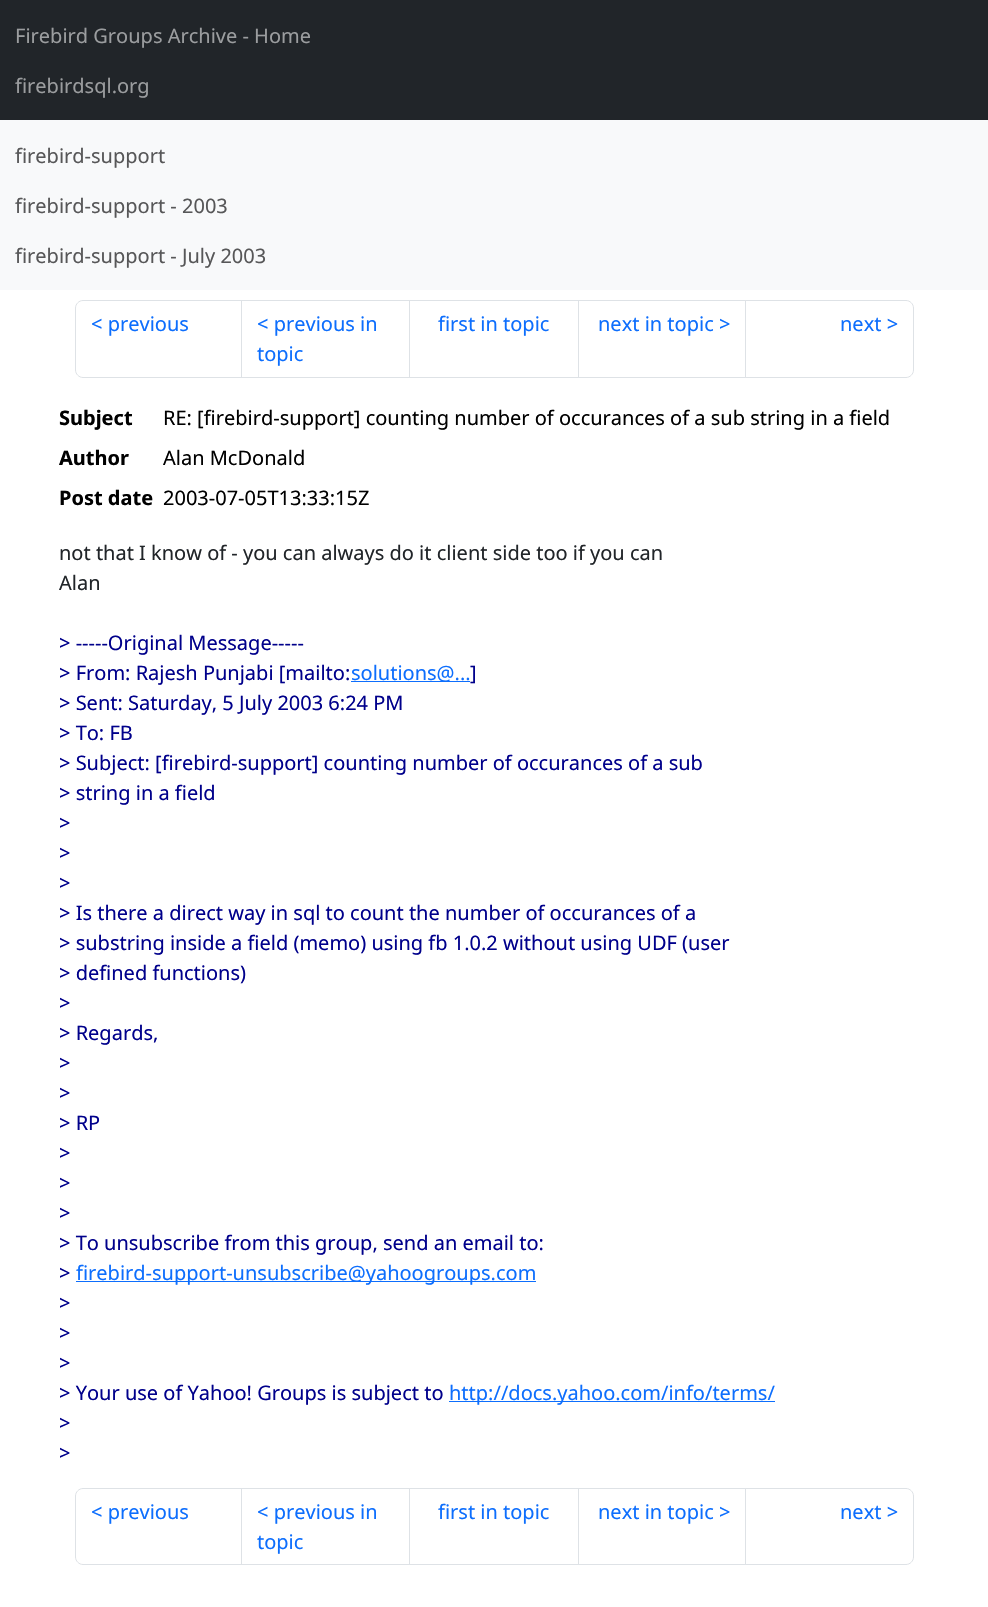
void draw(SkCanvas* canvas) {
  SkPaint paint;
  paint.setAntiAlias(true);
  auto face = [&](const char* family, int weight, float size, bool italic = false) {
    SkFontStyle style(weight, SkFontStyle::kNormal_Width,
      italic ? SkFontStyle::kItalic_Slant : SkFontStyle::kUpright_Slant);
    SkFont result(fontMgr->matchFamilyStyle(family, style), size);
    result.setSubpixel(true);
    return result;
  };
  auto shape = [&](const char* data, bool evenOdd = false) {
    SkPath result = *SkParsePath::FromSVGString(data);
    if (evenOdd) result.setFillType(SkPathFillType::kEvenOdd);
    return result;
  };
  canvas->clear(0xffffffff);
  paint.setColor(0xff212529);
  canvas->drawRect(SkRect::MakeXYWH(0, 0, 988, 120), paint);
  paint.setColor(0xfff8f9fa);
  canvas->drawRect(SkRect::MakeXYWH(0, 120, 988, 170), paint);
  paint.setStroke(true);
  paint.setStrokeWidth(1);
  paint.setColor(0xffdee2e6);
  canvas->drawPath(shape("M83 300.5H242.5V377.5H83C79 377.5 75.5 374 75.5 370V308C75.5 304 79 300.5 83 300.5Z"), paint);
  paint.setStroke(false);
  paint.setColor(0xffffffff);
  canvas->drawRect(SkRect::MakeXYWH(242, 301, 1, 76), paint);
  paint.setStroke(true);
  paint.setColor(0xffdee2e6);
  canvas->drawRect(SkRect::MakeXYWH(241.5f, 300.5f, 168, 77), paint);
  canvas->drawRect(SkRect::MakeXYWH(409.5f, 300.5f, 169, 77), paint);
  canvas->drawRect(SkRect::MakeXYWH(578.5f, 300.5f, 167, 77), paint);
  paint.setStroke(false);
  paint.setColor(0xffffffff);
  canvas->drawPath(shape("M745.5 300.5H906C910 300.5 913.5 304 913.5 308V370C913.5 374 910 377.5 906 377.5H745.5Z"), paint);
  paint.setStroke(true);
  paint.setColor(0xffdee2e6);
  canvas->drawPath(shape("M745.5 300.5H906C910 300.5 913.5 304 913.5 308V370C913.5 374 910 377.5 906 377.5H745.5Z"), paint);
  paint.setStroke(false);
  {
    const struct { float x, y, w, h; SkColor color; } items[] = {
      {351, 681, 119, 1, 0xff0d6efd},
      {76, 1281, 460, 1, 0xff0d6efd},
      {449, 1401, 326, 1, 0xff0d6efd},
    };
    for (auto [x, y, w, h, color] : items) {
      paint.setColor(color);
      canvas->drawRect(SkRect::MakeXYWH(x, y, w, h), paint);
    }
  }
  paint.setStroke(true);
  paint.setColor(0xffdee2e6);
  canvas->drawPath(shape("M83 1488.5H242.5V1564.5H83C79 1564.5 75.5 1561 75.5 1557V1496C75.5 1492 79 1488.5 83 1488.5Z"), paint);
  paint.setStroke(false);
  paint.setColor(0xffffffff);
  canvas->drawRect(SkRect::MakeXYWH(242, 1489, 1, 75), paint);
  paint.setStroke(true);
  paint.setColor(0xffdee2e6);
  canvas->drawRect(SkRect::MakeXYWH(241.5f, 1488.5f, 168, 76), paint);
  canvas->drawRect(SkRect::MakeXYWH(409.5f, 1488.5f, 169, 76), paint);
  canvas->drawRect(SkRect::MakeXYWH(578.5f, 1488.5f, 167, 76), paint);
  paint.setStroke(false);
  paint.setColor(0xffffffff);
  canvas->drawPath(shape("M745.5 1488.5H906C910 1488.5 913.5 1492 913.5 1496V1557C913.5 1561 910 1564.5 906 1564.5H745.5Z"), paint);
  paint.setStroke(true);
  paint.setColor(0xffdee2e6);
  canvas->drawPath(shape("M745.5 1488.5H906C910 1488.5 913.5 1492 913.5 1496V1557C913.5 1561 910 1564.5 906 1564.5H745.5Z"), paint);
  auto f0 = face("Noto Sans", 400, 20);
  paint.setStroke(false);
  paint.setColor(0xff9b9d9f);
  canvas->drawString("Firebird Groups Archive - Home", 15, 43, f0, paint);
  canvas->drawString("firebirdsql.org", 15, 93, f0, paint);
  paint.setColor(0xff575758);
  {
    const struct { const char* s; float x, y; } items[] = {
      {"firebird-support", 15, 163},
      {"firebird-support - 2003", 15, 213},
      {"firebird-support - July 2003", 15, 263},
    };
    for (auto [s, x, y] : items) {
      canvas->drawString(s, x, y, f0, paint);
    }
  }
  paint.setColor(0xff0d6efd);
  {
    const struct { const char* s; float x, y; } items[] = {
      {"< previous", 91, 331},
      {"< previous in", 257, 331},
      {"topic", 257, 361},
      {"first in topic", 438, 331},
      {"next in topic >", 598, 331},
      {"next >", 840, 331},
    };
    for (auto [s, x, y] : items) {
      canvas->drawString(s, x, y, f0, paint);
    }
  }
  auto f1 = face("Noto Sans", 700, 20);
  paint.setColor(0xff000000);
  canvas->drawString("Subject", 59, 425, f1, paint);
  canvas->drawString("RE: [firebird-support] counting number of occurances of a sub string in a field", 163, 425, f0, paint);
  canvas->drawString("Author", 59, 465, f1, paint);
  canvas->drawString("Alan McDonald", 163, 465, f0, paint);
  canvas->drawString("Post date", 59, 505, f1, paint);
  canvas->drawString("2003-07-05T13:33:15Z", 163, 505, f0, paint);
  paint.setColor(0xff212529);
  canvas->drawString("not that I know of - you can always do it client side too if you can", 59, 560, f0, paint);
  canvas->drawString("Alan", 59, 590, f0, paint);
  paint.setColor(0xff00008b);
  canvas->drawString("> -----Original Message-----", 59, 650, f0, paint);
  canvas->drawString("> From: Rajesh Punjabi [mailto:", 59, 680, f0, paint);
  paint.setColor(0xff0d6efd);
  canvas->drawString("solutions@...", 351, 680, f0, paint);
  paint.setColor(0xff00008b);
  {
    const struct { const char* s; float x, y; } items[] = {
      {"]", 470, 680},
      {"> Sent: Saturday, 5 July 2003 6:24 PM", 59, 710},
      {"> To: FB", 59, 740},
      {"> Subject: [firebird-support] counting number of occurances of a sub", 59, 770},
      {"> string in a field", 59, 800},
      {">", 59, 830},
      {">", 59, 860},
      {">", 59, 890},
      {"> Is there a direct way in sql to count the number of occurances of a", 59, 920},
      {"> substring inside a field (memo) using fb 1.0.2 without using UDF (user", 59, 950},
      {"> defined functions)", 59, 980},
      {">", 59, 1010},
      {"> Regards,", 59, 1040},
      {">", 59, 1070},
      {">", 59, 1100},
      {"> RP", 59, 1130},
      {">", 59, 1160},
      {">", 59, 1190},
      {">", 59, 1220},
      {"> To unsubscribe from this group, send an email to:", 59, 1250},
      {">", 59, 1280},
    };
    for (auto [s, x, y] : items) {
      canvas->drawString(s, x, y, f0, paint);
    }
  }
  paint.setColor(0xff0d6efd);
  canvas->drawString("firebird-support-unsubscribe@yahoogroups.com", 76, 1280, f0, paint);
  paint.setColor(0xff00008b);
  {
    const struct { const char* s; float x, y; } items[] = {
      {">", 59, 1310},
      {">", 59, 1340},
      {">", 59, 1370},
      {"> Your use of Yahoo! Groups is subject to", 59, 1400},
    };
    for (auto [s, x, y] : items) {
      canvas->drawString(s, x, y, f0, paint);
    }
  }
  paint.setColor(0xff0d6efd);
  canvas->drawString("http://docs.yahoo.com/info/terms/", 449, 1400, f0, paint);
  paint.setColor(0xff00008b);
  canvas->drawString(">", 59, 1430, f0, paint);
  canvas->drawString(">", 59, 1460, f0, paint);
  paint.setColor(0xff0d6efd);
  {
    const struct { const char* s; float x, y; } items[] = {
      {"< previous", 91, 1519},
      {"< previous in", 257, 1519},
      {"topic", 257, 1549},
      {"first in topic", 438, 1519},
      {"next in topic >", 598, 1519},
      {"next >", 840, 1519},
    };
    for (auto [s, x, y] : items) {
      canvas->drawString(s, x, y, f0, paint);
    }
  }
}
